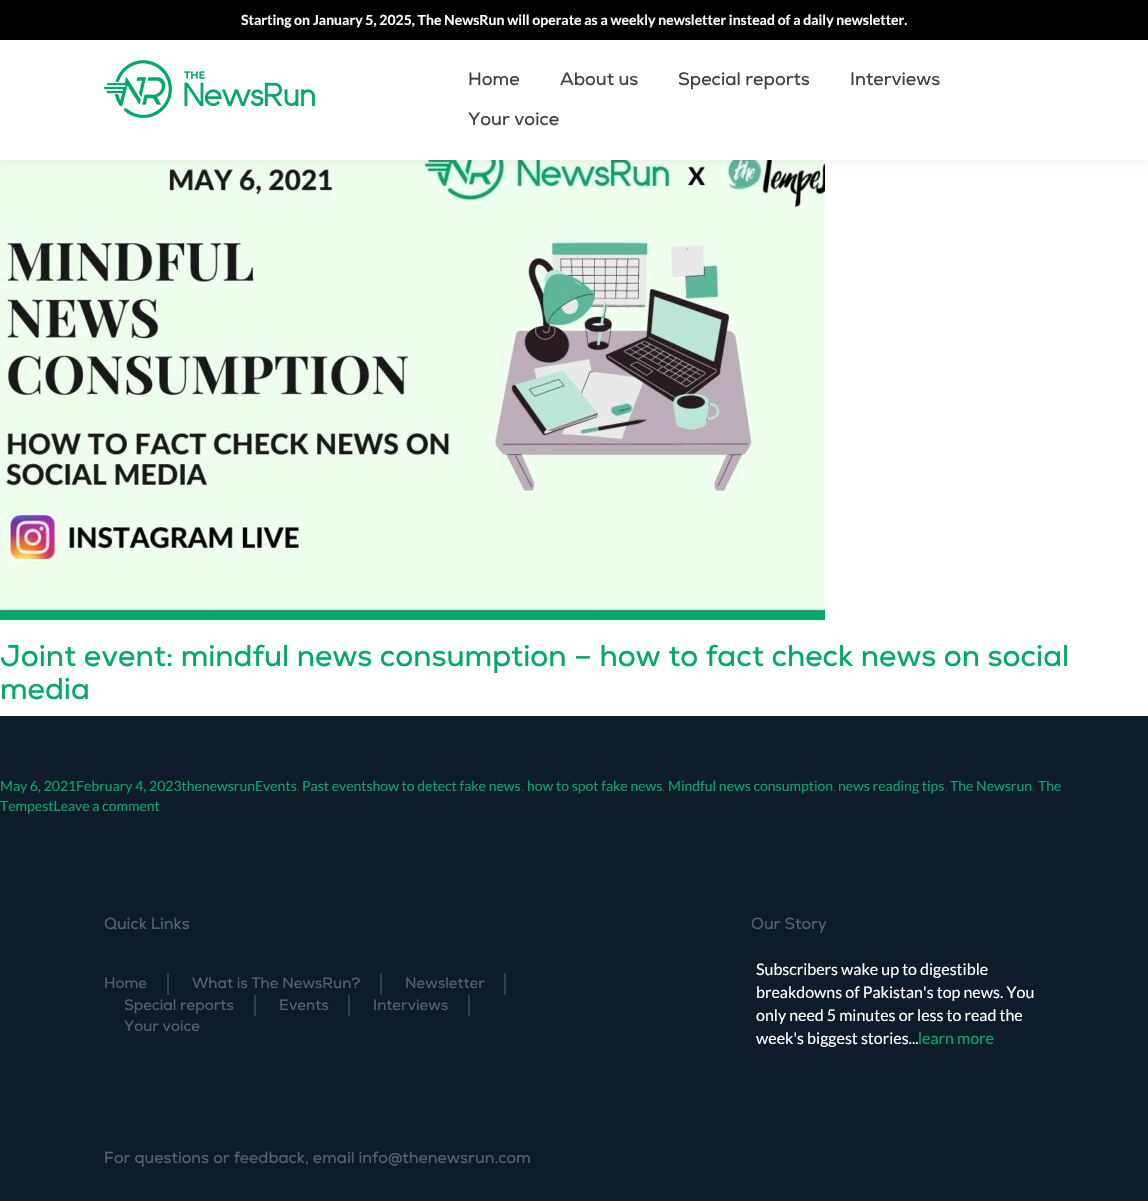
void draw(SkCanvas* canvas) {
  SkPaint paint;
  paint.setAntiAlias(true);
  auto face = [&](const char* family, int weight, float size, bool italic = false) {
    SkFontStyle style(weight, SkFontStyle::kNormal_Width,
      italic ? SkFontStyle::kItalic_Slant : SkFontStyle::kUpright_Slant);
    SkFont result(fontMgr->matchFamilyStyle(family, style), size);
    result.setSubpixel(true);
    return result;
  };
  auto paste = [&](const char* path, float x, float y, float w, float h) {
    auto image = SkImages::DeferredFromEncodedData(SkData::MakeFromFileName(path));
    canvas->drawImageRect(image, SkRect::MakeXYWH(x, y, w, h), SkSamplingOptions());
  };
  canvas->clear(0xffffffff);
  paste("img/1.png", 0, 160, 825, 460);
  paint.setColor(0x14000000);
  paint.setMaskFilter(SkMaskFilter::MakeBlur(kNormal_SkBlurStyle, 5));
  canvas->drawRect(SkRect::MakeXYWH(0, 40, 1148, 120), paint);
  paint.setMaskFilter(nullptr);
  {
    const struct { float x, y, w, h; SkColor color; } items[] = {
      {0, 0, 1148, 40, 0xff000000},
      {0, 716, 1148, 485, 0xff0e1c29},
      {0, 40, 1148, 120, 0xffffffff},
    };
    for (auto [x, y, w, h, color] : items) {
      paint.setColor(color);
      canvas->drawRect(SkRect::MakeXYWH(x, y, w, h), paint);
    }
  }
  paste("img/2.png", 104, 60, 211, 58);
  {
    const struct { float x, y, w, h; SkColor color; } items[] = {
      {167, 973, 2, 22, 0xff32414f},
      {380, 973, 2, 22, 0xff32414f},
      {504, 973, 2, 22, 0xff32414f},
      {254, 995, 2, 21, 0xff32414f},
      {348, 995, 2, 21, 0xff32414f},
      {468, 995, 2, 21, 0xff32414f},
    };
    for (auto [x, y, w, h, color] : items) {
      paint.setColor(color);
      canvas->drawRect(SkRect::MakeXYWH(x, y, w, h), paint);
    }
  }
  auto f0 = face("Lato", 700, 14);
  paint.setColor(0xffffffff);
  canvas->drawString("Starting on January 5, 2025, The NewsRun will operate as a weekly newsletter instead of a daily newsletter.", 241, 25, f0, paint);
  auto f1 = face("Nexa", 400, 30);
  paint.setColor(0xff00a86b);
  canvas->drawString("Joint event: mindful news consumption – how to fact check news on social", 0, 666, f1, paint);
  canvas->drawString("media", 0, 699, f1, paint);
  auto f2 = face("Lato", 400, 14);
  canvas->drawString("May 6, 2021February 4, 2023thenewsrunEvents", 0, 791, f2, paint);
  paint.setColor(0xff333333);
  canvas->drawString(",", 297, 791, f2, paint);
  paint.setColor(0xff00a86b);
  canvas->drawString("Past eventshow to detect fake news", 302, 791, f2, paint);
  paint.setColor(0xff333333);
  canvas->drawString(",", 521, 791, f2, paint);
  paint.setColor(0xff00a86b);
  canvas->drawString("how to spot fake news", 527, 791, f2, paint);
  paint.setColor(0xff333333);
  canvas->drawString(",", 662, 791, f2, paint);
  paint.setColor(0xff00a86b);
  canvas->drawString("Mindful news consumption", 668, 791, f2, paint);
  paint.setColor(0xff333333);
  canvas->drawString(",", 833, 791, f2, paint);
  paint.setColor(0xff00a86b);
  canvas->drawString("news reading tips", 838, 791, f2, paint);
  paint.setColor(0xff333333);
  canvas->drawString(",", 945, 791, f2, paint);
  paint.setColor(0xff00a86b);
  canvas->drawString("The Newsrun", 950, 791, f2, paint);
  paint.setColor(0xff333333);
  canvas->drawString(",", 1032, 791, f2, paint);
  paint.setColor(0xff00a86b);
  canvas->drawString("The", 1038, 791, f2, paint);
  canvas->drawString("TempestLeave a comment", 0, 811, f2, paint);
  auto f3 = face("Nexa", 400, 18);
  paint.setColor(0xff3f3f3f);
  {
    const struct { const char* s; float x, y; } items[] = {
      {"Home", 468, 85},
      {"About us", 560, 85},
      {"Special reports", 678, 85},
      {"Interviews", 850, 85},
      {"Your voice", 468, 125},
    };
    for (auto [s, x, y] : items) {
      canvas->drawString(s, x, y, f3, paint);
    }
  }
  auto f4 = face("Nexa", 400, 16);
  paint.setColor(0xff526270);
  canvas->drawString("Quick Links", 104, 929, f4, paint);
  auto f5 = face("Nexa", 400, 15);
  {
    const struct { const char* s; float x, y; } items[] = {
      {"Home", 104, 988},
      {"What is The NewsRun?", 192, 988},
      {"Newsletter", 405, 988},
      {"Special reports", 124, 1010},
      {"Events", 279, 1010},
      {"Interviews", 373, 1010},
      {"Your voice", 124, 1031},
    };
    for (auto [s, x, y] : items) {
      canvas->drawString(s, x, y, f5, paint);
    }
  }
  canvas->drawString("Our Story", 751, 929, f4, paint);
  auto f6 = face("Lato", 400, 16);
  paint.setColor(0xffffffff);
  {
    const struct { const char* s; float x, y; } items[] = {
      {"Subscribers wake up to digestible", 756, 975},
      {"breakdowns of Pakistan's top news. You", 756, 998},
      {"only need 5 minutes or less to read the", 756, 1021},
      {"week's biggest stories...", 756, 1044},
    };
    for (auto [s, x, y] : items) {
      canvas->drawString(s, x, y, f6, paint);
    }
  }
  paint.setColor(0xff00a86b);
  canvas->drawString("learn more", 918, 1044, f6, paint);
  paint.setColor(0xff526270);
  canvas->drawString("For questions or feedback, email info@thenewsrun.com", 104, 1163, f4, paint);
}
